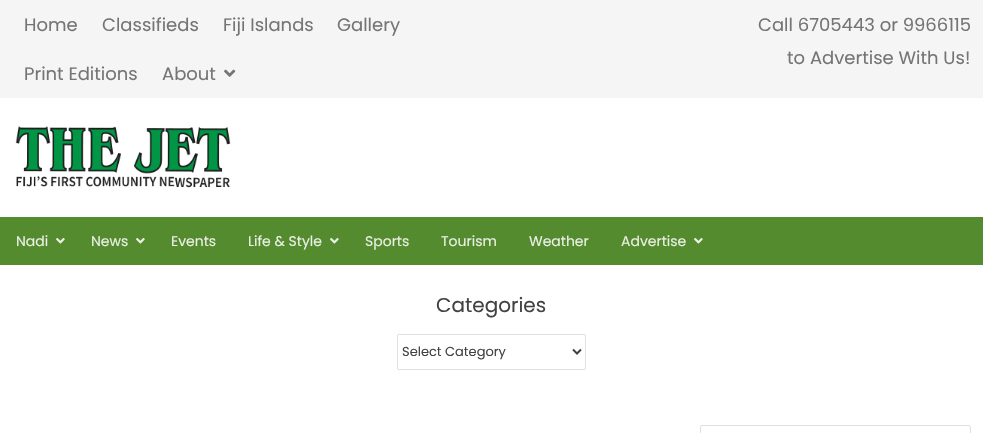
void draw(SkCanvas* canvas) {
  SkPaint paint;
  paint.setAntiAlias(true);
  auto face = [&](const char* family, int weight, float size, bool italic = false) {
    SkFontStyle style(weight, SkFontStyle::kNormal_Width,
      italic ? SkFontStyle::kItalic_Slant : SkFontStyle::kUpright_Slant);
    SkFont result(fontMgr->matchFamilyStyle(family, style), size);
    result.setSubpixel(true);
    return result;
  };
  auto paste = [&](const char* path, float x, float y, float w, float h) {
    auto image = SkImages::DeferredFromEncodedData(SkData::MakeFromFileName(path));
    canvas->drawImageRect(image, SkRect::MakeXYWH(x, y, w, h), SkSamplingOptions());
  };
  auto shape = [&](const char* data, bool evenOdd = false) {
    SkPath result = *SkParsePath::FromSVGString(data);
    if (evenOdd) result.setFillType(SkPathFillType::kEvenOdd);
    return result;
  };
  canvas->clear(0xffffffff);
  paint.setColor(0xfff5f5f5);
  canvas->drawRect(SkRect::MakeXYWH(0, 0, 983, 98), paint);
  paste("img/1.png", 224, 69, 12, 8);
  paste("img/2.png", 15, 126, 216, 62);
  paint.setColor(0xff558b2f);
  canvas->drawRect(SkRect::MakeXYWH(0, 217, 983, 48), paint);
  paste("img/3.png", 56, 238, 9, 6);
  paste("img/3.png", 136, 238, 9, 6);
  paste("img/3.png", 330, 238, 9, 6);
  paste("img/3.png", 694, 238, 9, 6);
  paint.setStroke(true);
  paint.setStrokeWidth(1);
  paint.setColor(0xffe0e0e0);
  canvas->drawRoundRect(SkRect::MakeXYWH(397.5f, 334.5f, 188, 35), 1.5f, 1.5f, paint);
  paint.setStrokeWidth(2);
  paint.setColor(0xff424242);
  canvas->drawPath(shape("M573 349.5L577 353.5L581 349.5"), paint);
  paint.setStrokeWidth(1);
  paint.setColor(0xffe0e0e0);
  canvas->drawRoundRect(SkRect::MakeXYWH(700.5f, 425.5f, 270, 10), 1.5f, 1.5f, paint);
  auto f0 = face("Poppins", 400, 18);
  paint.setStroke(false);
  paint.setColor(0xff757575);
  {
    const struct { const char* s; float x, y; } items[] = {
      {"Home", 24, 31},
      {"Classifieds", 102, 31},
      {"Fiji Islands", 223, 31},
      {"Gallery", 337, 31},
      {"Print Editions", 24, 80},
      {"About", 162, 80},
      {"Call 6705443 or 9966115", 758, 31},
      {"to Advertise With Us!", 787, 64},
    };
    for (auto [s, x, y] : items) {
      canvas->drawString(s, x, y, f0, paint);
    }
  }
  auto f1 = face("Poppins", 400, 14);
  paint.setColor(0xffe9f0e4);
  {
    const struct { const char* s; float x, y; } items[] = {
      {"Nadi", 16, 246},
      {"News", 91, 246},
      {"Events", 171, 246},
      {"Life & Style", 248, 246},
      {"Sports", 365, 246},
      {"Tourism", 441, 246},
      {"Weather", 529, 246},
      {"Advertise", 621, 246},
    };
    for (auto [s, x, y] : items) {
      canvas->drawString(s, x, y, f1, paint);
    }
  }
  auto f2 = face("Poppins", 400, 20);
  paint.setColor(0xff424242);
  canvas->drawString("Categories", 436, 312, f2, paint);
  auto f3 = face("Poppins", 400, 13);
  canvas->drawString("Select Category", 402, 356, f3, paint);
}
